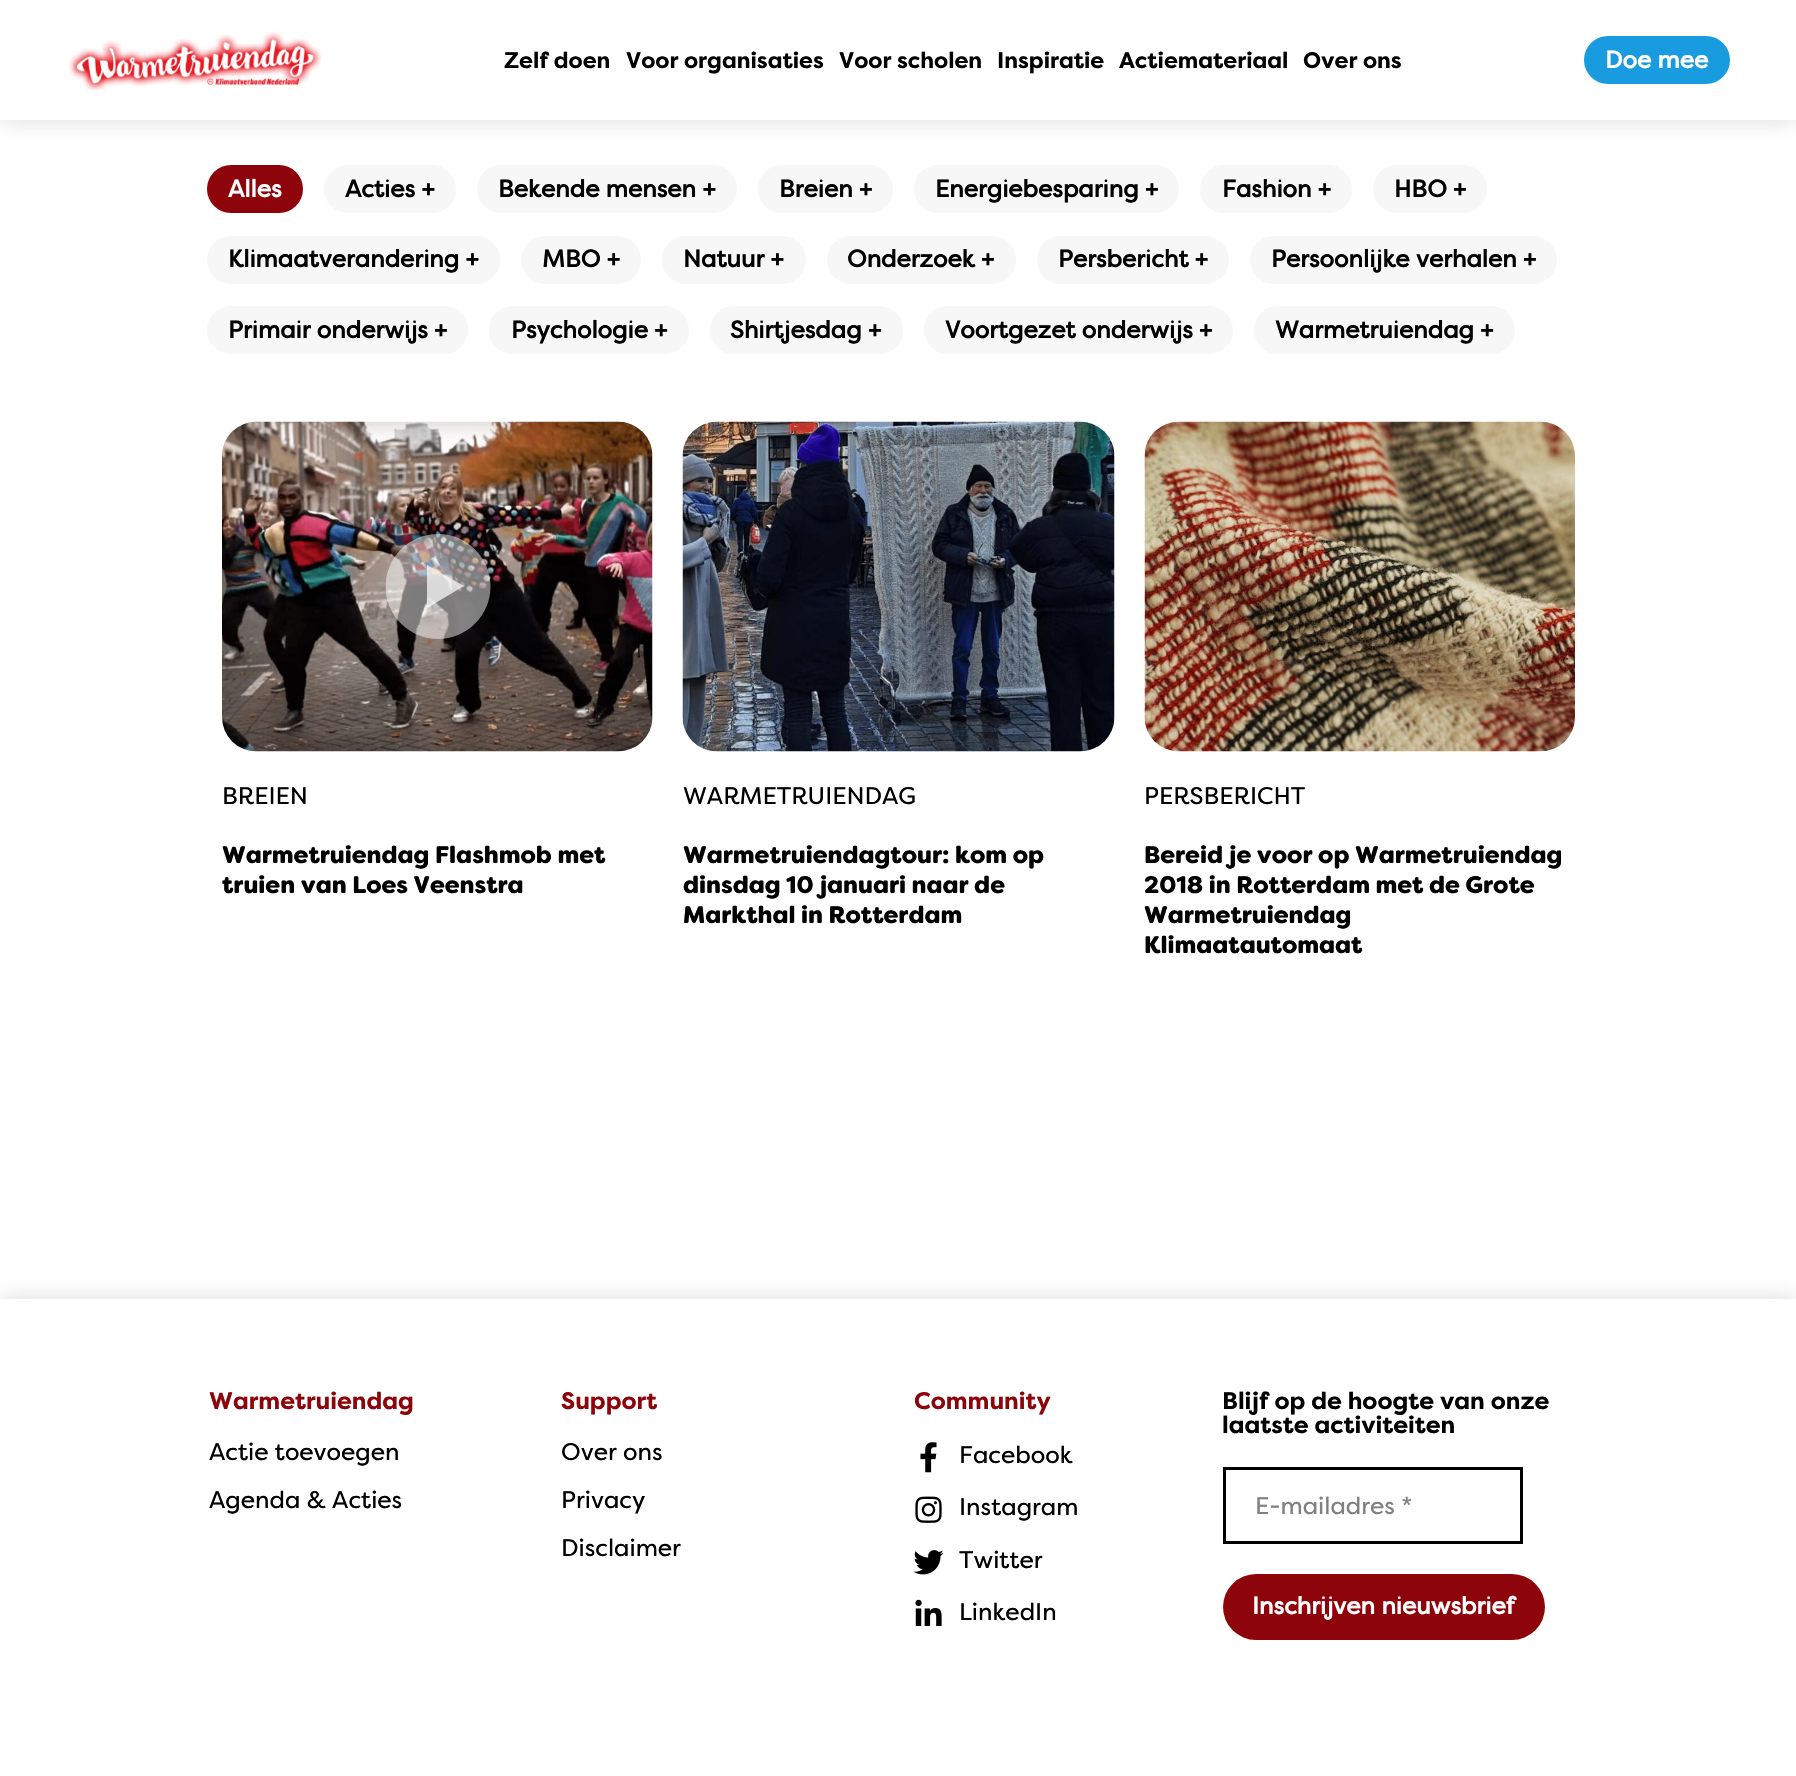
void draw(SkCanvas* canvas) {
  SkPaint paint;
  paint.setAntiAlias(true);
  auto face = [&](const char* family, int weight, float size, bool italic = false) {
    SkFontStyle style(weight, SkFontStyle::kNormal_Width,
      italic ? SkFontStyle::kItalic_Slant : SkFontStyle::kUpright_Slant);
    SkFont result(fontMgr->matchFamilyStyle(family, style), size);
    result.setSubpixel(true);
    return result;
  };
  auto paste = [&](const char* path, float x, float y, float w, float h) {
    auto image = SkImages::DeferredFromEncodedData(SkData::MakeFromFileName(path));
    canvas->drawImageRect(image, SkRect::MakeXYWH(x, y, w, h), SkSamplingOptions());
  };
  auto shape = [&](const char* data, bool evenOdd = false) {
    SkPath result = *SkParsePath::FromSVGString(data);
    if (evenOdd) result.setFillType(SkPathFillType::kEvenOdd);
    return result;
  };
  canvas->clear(0xffffffff);
  paint.setColor(0x80b4b4b4);
  paint.setMaskFilter(SkMaskFilter::MakeBlur(kNormal_SkBlurStyle, 11));
  canvas->drawRect(SkRect::MakeXYWH(0, 0, 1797, 120), paint);
  paint.setMaskFilter(nullptr);
  paint.setColor(0xffffffff);
  canvas->drawRect(SkRect::MakeXYWH(0, 0, 1796, 120), paint);
  paste("img/1.png", 68, 31, 254, 59);
  paint.setColor(0xff199bdf);
  canvas->drawRoundRect(SkRect::MakeXYWH(1584, 36, 146, 48), 24, 24, paint);
  paint.setColor(0xff8d040a);
  canvas->drawRoundRect(SkRect::MakeXYWH(207, 165, 96, 48), 24, 24, paint);
  paint.setColor(0xfff7f7f7);
  canvas->drawRoundRect(SkRect::MakeXYWH(324, 165, 132, 48), 24, 24, paint);
  canvas->drawRoundRect(SkRect::MakeXYWH(477, 165, 260, 48), 24, 24, paint);
  canvas->drawRoundRect(SkRect::MakeXYWH(758, 165, 135, 48), 24, 24, paint);
  canvas->drawRoundRect(SkRect::MakeXYWH(914, 165, 265, 48), 24, 24, paint);
  canvas->drawRoundRect(SkRect::MakeXYWH(1200, 165, 152, 48), 24, 24, paint);
  canvas->drawRoundRect(SkRect::MakeXYWH(1373, 165, 114, 48), 24, 24, paint);
  canvas->drawRoundRect(SkRect::MakeXYWH(207, 236, 293, 48), 24, 24, paint);
  canvas->drawRoundRect(SkRect::MakeXYWH(521, 236, 120, 48), 24, 24, paint);
  canvas->drawRoundRect(SkRect::MakeXYWH(662, 236, 144, 48), 24, 24, paint);
  canvas->drawRoundRect(SkRect::MakeXYWH(827, 236, 189, 48), 24, 24, paint);
  canvas->drawRoundRect(SkRect::MakeXYWH(1037, 236, 192, 48), 24, 24, paint);
  canvas->drawRoundRect(SkRect::MakeXYWH(1250, 236, 307, 48), 24, 24, paint);
  canvas->drawRoundRect(SkRect::MakeXYWH(207, 306, 261, 48), 24, 24, paint);
  canvas->drawRoundRect(SkRect::MakeXYWH(489, 306, 200, 48), 24, 24, paint);
  canvas->drawRoundRect(SkRect::MakeXYWH(710, 306, 193, 48), 24, 24, paint);
  canvas->drawRoundRect(SkRect::MakeXYWH(924, 306, 309, 48), 24, 24, paint);
  canvas->drawRoundRect(SkRect::MakeXYWH(1254, 306, 261, 48), 24, 24, paint);
  paste("img/2.png", 222, 421, 431, 331);
  canvas->save();
  canvas->clipRect(SkRect::MakeXYWH(386, 534, 105, 105));
  paint.setColor(0x7affffff);
  canvas->drawCircle(438, 586.5f, 52.5f, paint);
  canvas->restore();
  paint.setColor(0xb3ffffff);
  canvas->drawPath(shape("M464 586L427 608V565Z"), paint);
  paste("img/3.png", 682, 421, 433, 331);
  paste("img/4.png", 1144, 421, 431, 331);
  canvas->save();
  canvas->clipRect(SkRect::MakeXYWH(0, 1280, 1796, 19));
  paint.setColor(0x80b4b4b4);
  paint.setMaskFilter(SkMaskFilter::MakeBlur(kNormal_SkBlurStyle, 11));
  canvas->drawRect(SkRect::MakeXYWH(0, 1299, 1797, 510), paint);
  paint.setMaskFilter(nullptr);
  canvas->restore();
  paste("img/5.png", 920, 1442, 17, 31);
  paste("img/6.png", 915, 1496, 27, 27);
  paste("img/7.png", 913, 1550, 31, 25);
  paste("img/8.png", 915, 1599, 27, 27);
  paint.setStroke(true);
  paint.setStrokeWidth(3);
  paint.setColor(0xff000000);
  canvas->drawRect(SkRect::MakeXYWH(1224.5f, 1468.5f, 297, 74), paint);
  paint.setStroke(false);
  paint.setColor(0xff8d040a);
  canvas->drawRoundRect(SkRect::MakeXYWH(1223, 1574, 322, 66), 33, 33, paint);
  auto f0 = face("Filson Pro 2", 700, 22.5f);
  paint.setColor(0xff000000);
  {
    const struct { const char* s; float x, y; } items[] = {
      {"Zelf doen", 504, 68},
      {"Voor organisaties", 626, 68},
      {"Voor scholen", 839, 68},
      {"Inspiratie", 997, 68},
      {"Actiemateriaal", 1119, 68},
      {"Over ons", 1303, 68},
    };
    for (auto [s, x, y] : items) {
      canvas->drawString(s, x, y, f0, paint);
    }
  }
  auto f1 = face("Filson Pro", 700, 24);
  paint.setColor(0xffffffff);
  canvas->drawString("Doe mee", 1605, 68, f1, paint);
  canvas->drawString("Alles", 228, 197, f1, paint);
  paint.setColor(0xff000000);
  {
    const struct { const char* s; float x, y; } items[] = {
      {"Acties +", 345, 197},
      {"Bekende mensen +", 498, 197},
      {"Breien +", 779, 197},
      {"Energiebesparing +", 935, 197},
      {"Fashion +", 1222, 197},
      {"HBO +", 1394, 197},
      {"Klimaatverandering +", 228, 267},
      {"MBO +", 542, 267},
      {"Natuur +", 683, 267},
      {"Onderzoek +", 847, 267},
      {"Persbericht +", 1058, 267},
      {"Persoonlijke verhalen +", 1271, 267},
      {"Primair onderwijs +", 228, 338},
      {"Psychologie +", 511, 338},
      {"Shirtjesdag +", 730, 338},
      {"Voortgezet onderwijs +", 945, 338},
      {"Warmetruiendag +", 1275, 338},
    };
    for (auto [s, x, y] : items) {
      canvas->drawString(s, x, y, f1, paint);
    }
  }
  auto f2 = face("Filson Pro", 400, 24);
  canvas->drawString("BREIEN", 222, 804, f2, paint);
  auto f3 = face("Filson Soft", 900, 24);
  canvas->drawString("Warmetruiendag Flashmob met", 222, 863, f3, paint);
  canvas->drawString("truien van Loes Veenstra", 222, 893, f3, paint);
  canvas->drawString("WARMETRUIENDAG", 683, 804, f2, paint);
  {
    const struct { const char* s; float x, y; } items[] = {
      {"Warmetruiendagtour: kom op", 683, 863},
      {"dinsdag 10 januari naar de", 683, 893},
      {"Markthal in Rotterdam", 683, 923},
    };
    for (auto [s, x, y] : items) {
      canvas->drawString(s, x, y, f3, paint);
    }
  }
  canvas->drawString("PERSBERICHT", 1144, 804, f2, paint);
  {
    const struct { const char* s; float x, y; } items[] = {
      {"Bereid je voor op Warmetruiendag", 1144, 863},
      {"2018 in Rotterdam met de Grote", 1144, 893},
      {"Warmetruiendag", 1144, 923},
      {"Klimaatautomaat", 1144, 953},
    };
    for (auto [s, x, y] : items) {
      canvas->drawString(s, x, y, f3, paint);
    }
  }
  auto f4 = face("Filson Pro 2", 700, 24);
  paint.setColor(0xff8d040a);
  canvas->drawString("Warmetruiendag", 209, 1409, f4, paint);
  paint.setColor(0xff000000);
  canvas->drawString("Actie toevoegen", 209, 1460, f2, paint);
  canvas->drawString("Agenda & Acties", 209, 1508, f2, paint);
  paint.setColor(0xff8d040a);
  canvas->drawString("Support", 561, 1409, f4, paint);
  paint.setColor(0xff000000);
  {
    const struct { const char* s; float x, y; } items[] = {
      {"Over ons", 561, 1460},
      {"Privacy", 561, 1508},
      {"Disclaimer", 561, 1556},
    };
    for (auto [s, x, y] : items) {
      canvas->drawString(s, x, y, f2, paint);
    }
  }
  paint.setColor(0xff8d040a);
  canvas->drawString("Community", 914, 1409, f4, paint);
  paint.setColor(0xff000000);
  {
    const struct { const char* s; float x, y; } items[] = {
      {"Facebook", 959, 1463},
      {"Instagram", 959, 1515},
      {"Twitter", 959, 1568},
      {"LinkedIn", 959, 1620},
    };
    for (auto [s, x, y] : items) {
      canvas->drawString(s, x, y, f2, paint);
    }
  }
  canvas->drawString("Blijf op de hoogte van onze", 1222, 1409, f4, paint);
  canvas->drawString("laatste activiteiten", 1222, 1433, f4, paint);
  paint.setColor(0xff808080);
  canvas->drawString("E-mailadres *", 1255, 1514, f2, paint);
  paint.setColor(0xffffffff);
  canvas->drawString("Inschrijven nieuwsbrief", 1252, 1614, f1, paint);
}
